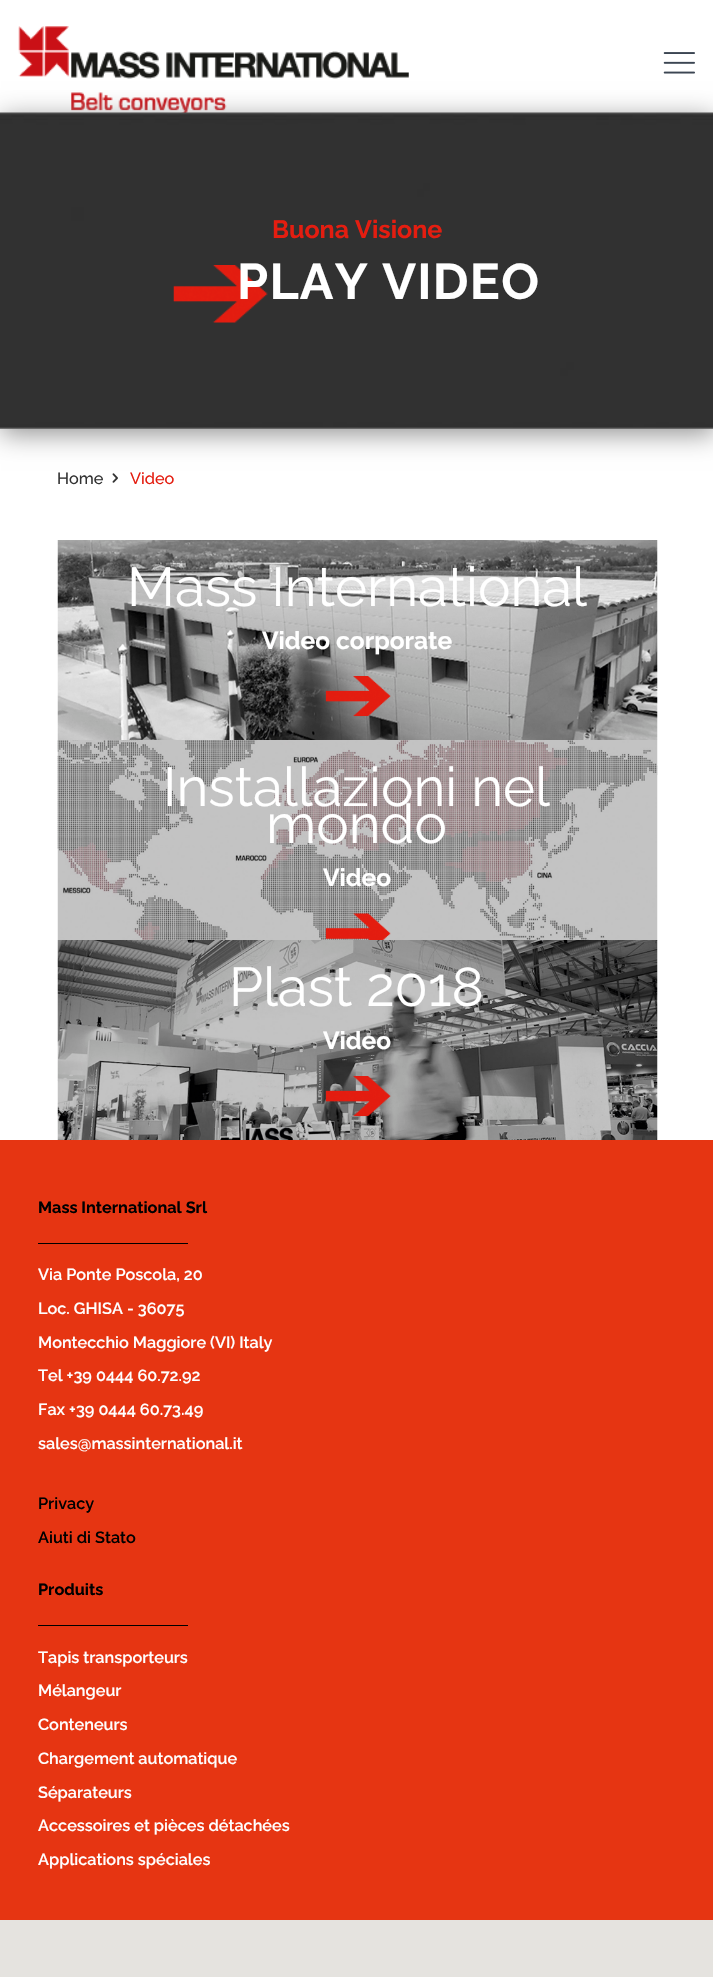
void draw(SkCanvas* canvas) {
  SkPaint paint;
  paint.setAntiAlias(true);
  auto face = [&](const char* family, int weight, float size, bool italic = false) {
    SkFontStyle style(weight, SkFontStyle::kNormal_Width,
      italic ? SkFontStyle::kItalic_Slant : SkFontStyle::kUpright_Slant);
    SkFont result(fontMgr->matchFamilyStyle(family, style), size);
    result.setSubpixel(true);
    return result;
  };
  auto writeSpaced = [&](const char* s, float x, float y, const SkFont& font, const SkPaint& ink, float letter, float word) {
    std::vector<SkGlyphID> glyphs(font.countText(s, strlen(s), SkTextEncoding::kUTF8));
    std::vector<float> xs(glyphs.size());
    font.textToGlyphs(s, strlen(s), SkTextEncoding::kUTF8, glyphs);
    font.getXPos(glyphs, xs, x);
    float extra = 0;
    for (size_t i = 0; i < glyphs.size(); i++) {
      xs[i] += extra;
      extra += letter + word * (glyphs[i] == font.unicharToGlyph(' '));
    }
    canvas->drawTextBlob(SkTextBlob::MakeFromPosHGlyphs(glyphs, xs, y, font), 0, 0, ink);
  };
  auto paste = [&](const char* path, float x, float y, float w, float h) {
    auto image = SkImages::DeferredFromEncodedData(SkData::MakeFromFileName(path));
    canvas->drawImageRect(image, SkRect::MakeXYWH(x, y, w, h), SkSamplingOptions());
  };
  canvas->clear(0xffffffff);
  paste("img/1.png", 18, 26, 391, 87);
  paste("img/2.png", 663, 52, 32, 22);
  paint.setColor(0xff919191);
  paint.setMaskFilter(SkMaskFilter::MakeBlur(kNormal_SkBlurStyle, 12.5f));
  canvas->drawRect(SkRect::MakeXYWH(1, 118, 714, 316), paint);
  paint.setMaskFilter(nullptr);
  paste("img/3.png", 0, 112, 713, 317);
  paste("img/4.png", 173, 265, 95, 58);
  paste("img/5.png", 112, 473, 6, 10);
  paste("img/6.png", 57, 540, 601, 200);
  paste("img/7.png", 325, 676, 66, 41);
  paste("img/8.png", 57, 740, 601, 200);
  paste("img/9.png", 325, 913, 66, 27);
  paste("img/10.png", 57, 940, 601, 200);
  paste("img/11.png", 325, 1076, 66, 41);
  {
    const struct { float x, y, w, h; SkColor color; } items[] = {
      {0, 1140, 713, 780, 0xffe63512},
      {38, 1243, 150, 1, 0xff000000},
      {38, 1625, 150, 1, 0xff000000},
      {0, 1920, 713, 57, 0xffe5e3df},
    };
    for (auto [x, y, w, h, color] : items) {
      paint.setColor(color);
      canvas->drawRect(SkRect::MakeXYWH(x, y, w, h), paint);
    }
  }
  auto f0 = face("Raleway", 700, 25);
  paint.setColor(0xffe41d10);
  canvas->drawString("Buona Visione", 272, 238, f0, paint);
  auto f1 = face("Raleway", 700, 50);
  paint.setColor(0xffffffff);
  writeSpaced("PLAY VIDEO", 237, 299, f1, paint, 1.25f, 0);
  auto f2 = face("Raleway", 500, 16.25f);
  paint.setColor(0xff333333);
  canvas->drawString("Home", 57, 484, f2, paint);
  paint.setColor(0xffe41d10);
  canvas->drawString("Video", 130, 484, f2, paint);
  auto f3 = face("Raleway", 400, 54.6f);
  paint.setColor(0xffffffff);
  canvas->drawString("Mass International", 127, 606, f3, paint);
  auto f4 = face("Raleway", 700, 24.5f);
  canvas->drawString("Video corporate", 262, 649, f4, paint);
  canvas->drawString("Installazioni nel", 163, 806, f3, paint);
  canvas->drawString("mondo", 266, 843, f3, paint);
  canvas->drawString("Video", 323, 886, f4, paint);
  canvas->drawString("Plast 2018", 229, 1006, f3, paint);
  canvas->drawString("Video", 323, 1049, f4, paint);
  auto f5 = face("Raleway", 700, 16.25f);
  paint.setColor(0xff000000);
  canvas->drawString("Mass International Srl", 38, 1213, f5, paint);
  auto f6 = face("Raleway", 600, 16.25f);
  paint.setColor(0xffffffff);
  {
    const struct { const char* s; float x, y; } items[] = {
      {"Via Ponte Poscola, 20", 38, 1280},
      {"Loc. GHISA - 36075", 38, 1314},
      {"Montecchio Maggiore (VI) Italy", 38, 1348},
      {"Tel +39 0444 60.72.92", 38, 1381},
      {"Fax +39 0444 60.73.49", 38, 1415},
      {"sales@massinternational.it", 38, 1449},
    };
    for (auto [s, x, y] : items) {
      canvas->drawString(s, x, y, f6, paint);
    }
  }
  paint.setColor(0xff000000);
  canvas->drawString("Privacy", 38, 1509, f6, paint);
  canvas->drawString("Aiuti di Stato", 38, 1543, f6, paint);
  canvas->drawString("Produits", 38, 1595, f5, paint);
  paint.setColor(0xffffffff);
  {
    const struct { const char* s; float x, y; } items[] = {
      {"Tapis transporteurs", 38, 1663},
      {"Mélangeur", 38, 1696},
      {"Conteneurs", 38, 1730},
      {"Chargement automatique", 38, 1764},
      {"Séparateurs", 38, 1798},
      {"Accessoires et pièces détachées", 38, 1831},
      {"Applications spéciales", 38, 1865},
    };
    for (auto [s, x, y] : items) {
      canvas->drawString(s, x, y, f6, paint);
    }
  }
}
